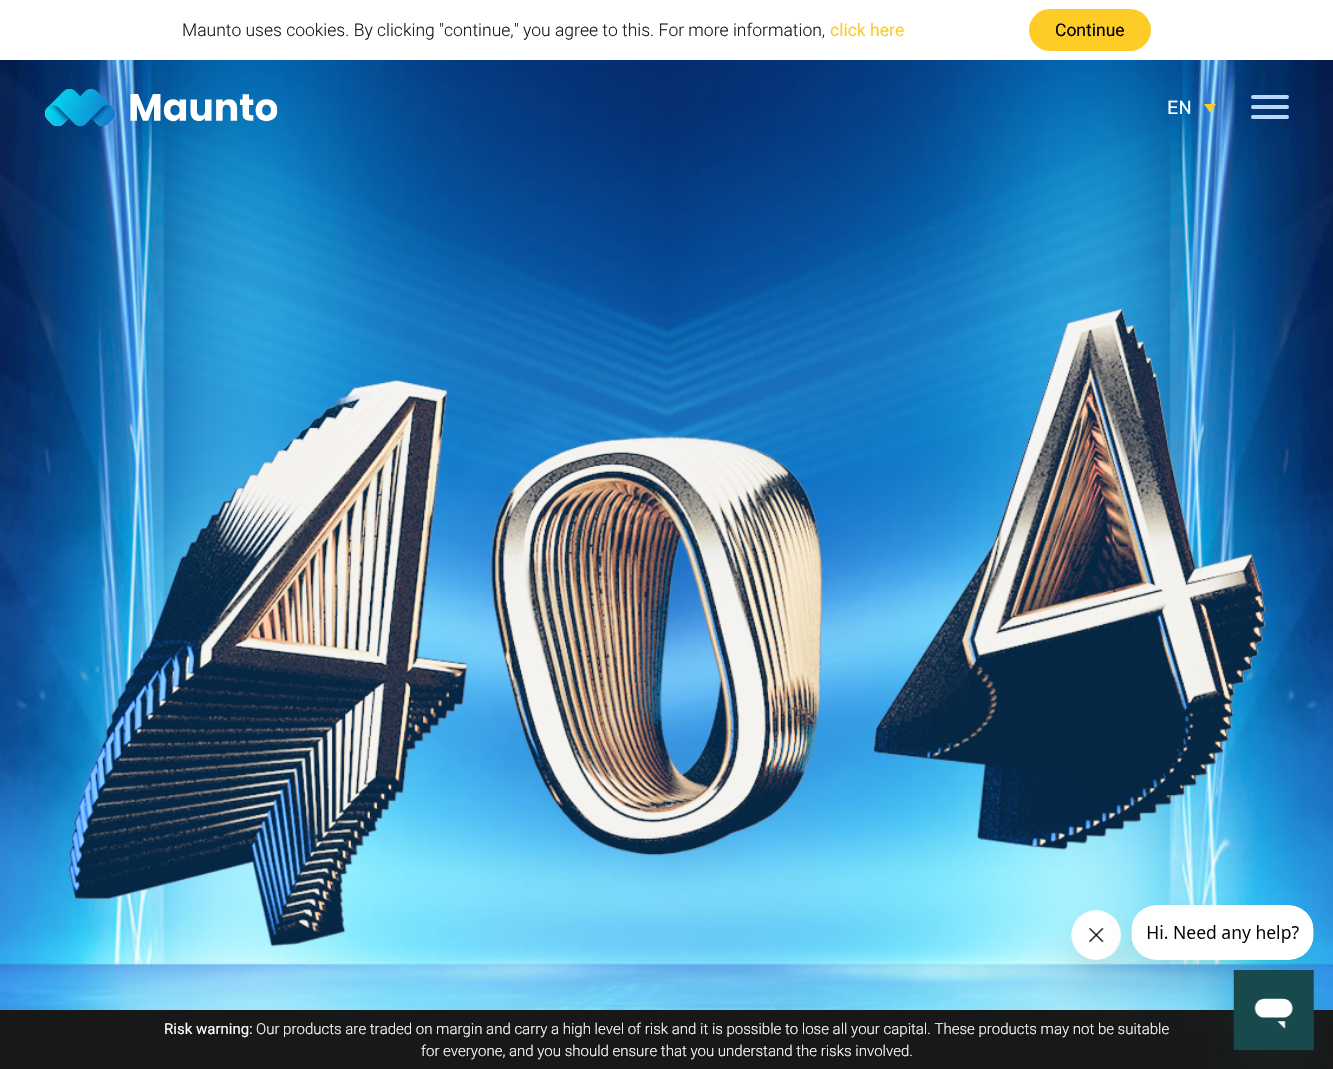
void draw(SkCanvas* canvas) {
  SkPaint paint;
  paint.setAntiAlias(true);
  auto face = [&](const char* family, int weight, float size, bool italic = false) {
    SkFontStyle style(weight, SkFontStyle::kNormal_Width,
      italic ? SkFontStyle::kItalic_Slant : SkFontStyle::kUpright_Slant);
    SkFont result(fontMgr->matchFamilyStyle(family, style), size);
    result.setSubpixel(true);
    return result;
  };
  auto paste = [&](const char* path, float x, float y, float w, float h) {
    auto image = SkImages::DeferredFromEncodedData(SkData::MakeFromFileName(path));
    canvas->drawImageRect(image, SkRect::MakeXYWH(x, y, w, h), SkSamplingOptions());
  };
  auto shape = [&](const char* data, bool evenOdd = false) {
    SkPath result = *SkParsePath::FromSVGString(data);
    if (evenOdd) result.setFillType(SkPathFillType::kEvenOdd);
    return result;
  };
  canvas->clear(0xffffffff);
  paint.setColor(0xfffecc27);
  canvas->drawRoundRect(SkRect::MakeXYWH(1029, 9, 122, 42), 21, 21, paint);
  paste("img/2.png", 0, 60, 1333, 950);
  paste("img/1.png", 45, 89, 233, 37);
  canvas->drawPath(shape("M1204 104H1216L1210 112.5Z"), paint);
  paint.setColor(0xffb9d7ff);
  canvas->drawRoundRect(SkRect::MakeXYWH(1251, 95, 38, 4), 2, 2, paint);
  canvas->drawRoundRect(SkRect::MakeXYWH(1251, 105, 38, 4), 2, 2, paint);
  canvas->drawRoundRect(SkRect::MakeXYWH(1251, 115, 38, 4), 2, 2, paint);
  paste("img/3.png", 67, 308, 1200, 639);
  paint.setColor(0xff181818);
  canvas->drawRect(SkRect::MakeXYWH(0, 1010, 1333, 59), paint);
  paint.setColor(0x2617494d);
  paint.setMaskFilter(SkMaskFilter::MakeBlur(kNormal_SkBlurStyle, 19));
  canvas->drawRoundRect(SkRect::MakeXYWH(1071, 935, 50, 50), 25, 25, paint);
  paint.setMaskFilter(nullptr);
  paste("img/5.png", 1071, 910, 51, 50);
  paint.setMaskFilter(SkMaskFilter::MakeBlur(kNormal_SkBlurStyle, 19));
  canvas->drawRoundRect(SkRect::MakeXYWH(1131, 930, 183, 55), 25, 25, paint);
  paint.setMaskFilter(nullptr);
  paste("img/4.png", 1131, 905, 183, 55);
  paint.setMaskFilter(SkMaskFilter::MakeBlur(kNormal_SkBlurStyle, 19));
  canvas->drawRect(SkRect::MakeXYWH(1234, 995, 80, 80), paint);
  paint.setMaskFilter(nullptr);
  paste("img/6.png", 1233, 970, 81, 80);
  auto f0 = face("Roboto", 300, 17.5f);
  paint.setColor(0xff1a1a1a);
  canvas->drawString("Maunto uses cookies. By clicking \"continue,\" you agree to this. For more information,", 182, 36, f0, paint);
  auto f1 = face("Roboto", 400, 17.5f);
  paint.setColor(0xfffecc27);
  canvas->drawString("click here", 830, 36, f1, paint);
  paint.setColor(0xff000000);
  canvas->drawString("Continue", 1055, 36, f1, paint);
  auto f2 = face("Rubik", 400, 19);
  paint.setColor(0xffffffff);
  canvas->drawString("EN", 1167, 114, f2, paint);
  auto f3 = face("Roboto", 400, 15);
  canvas->drawString("Risk warning:", 164, 1034, f3, paint);
  auto f4 = face("Roboto", 300, 15);
  canvas->drawString("Our products are traded on margin and carry a high level of risk and it is possible to lose all your capital. These products may not be suitable", 256, 1034, f4, paint);
  canvas->drawString("for everyone, and you should ensure that you understand the risks involved.", 421, 1056, f4, paint);
}
